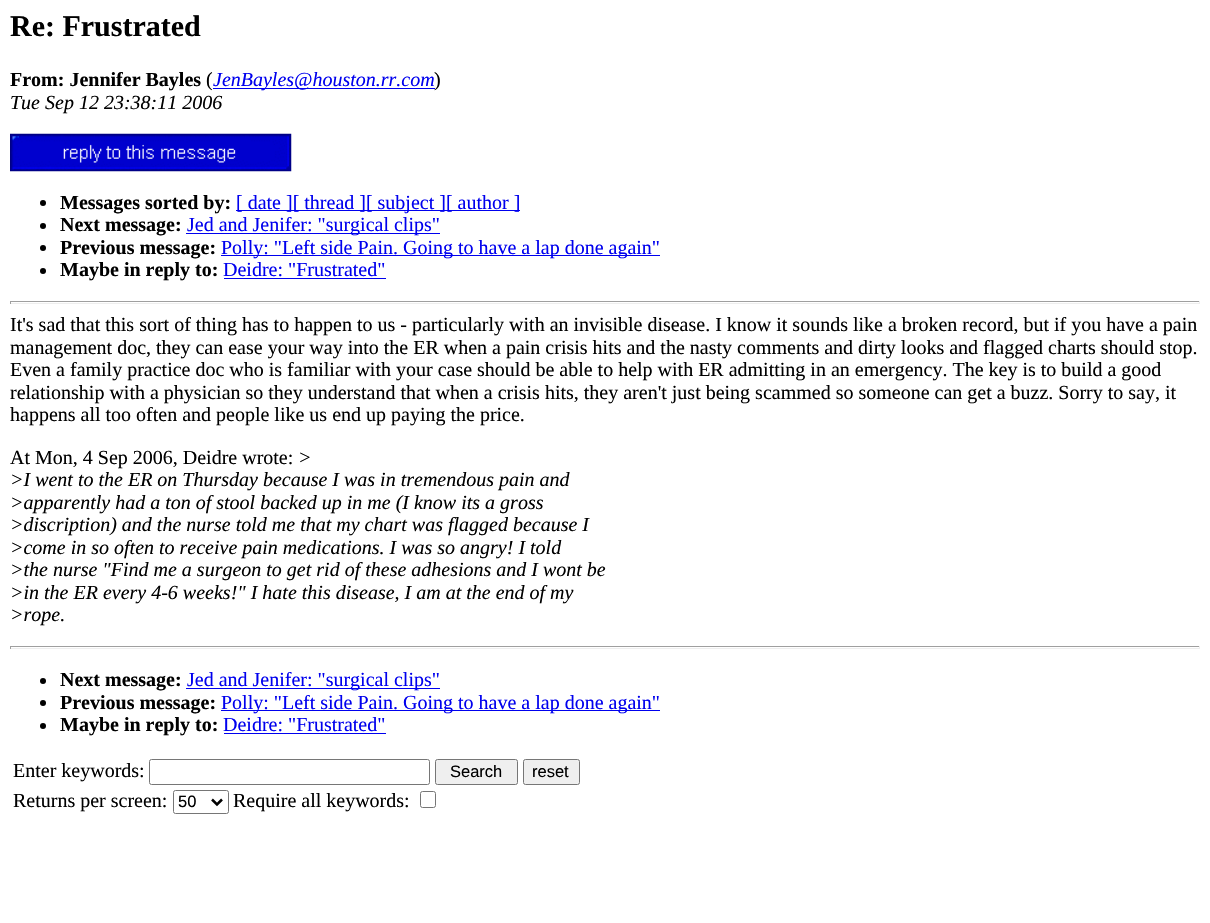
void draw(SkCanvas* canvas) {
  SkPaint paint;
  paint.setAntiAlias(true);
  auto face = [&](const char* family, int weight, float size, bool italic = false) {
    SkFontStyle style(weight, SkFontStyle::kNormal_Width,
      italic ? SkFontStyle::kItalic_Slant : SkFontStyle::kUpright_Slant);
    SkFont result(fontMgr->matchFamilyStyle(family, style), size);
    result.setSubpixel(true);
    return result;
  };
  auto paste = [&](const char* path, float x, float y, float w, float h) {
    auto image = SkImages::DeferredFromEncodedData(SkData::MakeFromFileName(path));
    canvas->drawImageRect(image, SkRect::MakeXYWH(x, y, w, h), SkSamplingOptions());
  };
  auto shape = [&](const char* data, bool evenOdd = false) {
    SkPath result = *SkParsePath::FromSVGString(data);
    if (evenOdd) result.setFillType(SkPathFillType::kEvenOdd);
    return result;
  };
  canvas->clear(0xffffffff);
  paint.setColor(0xff0000ee);
  canvas->drawRect(SkRect::MakeXYWH(213, 88, 222, 1), paint);
  paste("img/1.png", 10, 133, 282, 39);
  paint.setColor(0xff000000);
  canvas->drawCircle(43, 203, 3, paint);
  paint.setColor(0xff0000ee);
  canvas->drawRect(SkRect::MakeXYWH(236, 210, 284, 1), paint);
  paint.setColor(0xff000000);
  canvas->drawCircle(43, 226, 3, paint);
  paint.setColor(0xff0000ee);
  canvas->drawRect(SkRect::MakeXYWH(186, 233, 254, 1), paint);
  paint.setColor(0xff000000);
  canvas->drawCircle(43, 248, 3, paint);
  paint.setColor(0xff0000ee);
  canvas->drawRect(SkRect::MakeXYWH(221, 255, 439, 1), paint);
  paint.setColor(0xff000000);
  canvas->drawCircle(43, 271, 3, paint);
  {
    const struct { float x, y, w, h; SkColor color; } items[] = {
      {224, 278, 162, 1, 0xff0000ee},
      {10, 301, 1190, 1, 0xff9f9f9f},
      {1199, 301, 1, 3, 0xffeeeeee},
      {10, 303, 1190, 1, 0xffeeeeee},
      {10, 301, 1, 3, 0xff9f9f9f},
      {10, 646, 1190, 1, 0xff9f9f9f},
      {1199, 646, 1, 3, 0xffeeeeee},
      {10, 648, 1190, 1, 0xffeeeeee},
      {10, 646, 1, 3, 0xff9f9f9f},
    };
    for (auto [x, y, w, h, color] : items) {
      paint.setColor(color);
      canvas->drawRect(SkRect::MakeXYWH(x, y, w, h), paint);
    }
  }
  paint.setColor(0xff000000);
  canvas->drawCircle(43, 681, 3, paint);
  paint.setColor(0xff0000ee);
  canvas->drawRect(SkRect::MakeXYWH(186, 688, 254, 1), paint);
  paint.setColor(0xff000000);
  canvas->drawCircle(43, 703, 3, paint);
  paint.setColor(0xff0000ee);
  canvas->drawRect(SkRect::MakeXYWH(221, 710, 439, 1), paint);
  paint.setColor(0xff000000);
  canvas->drawCircle(43, 726, 3, paint);
  paint.setColor(0xff0000ee);
  canvas->drawRect(SkRect::MakeXYWH(224, 733, 162, 1), paint);
  paint.setStroke(true);
  paint.setStrokeWidth(1);
  paint.setColor(0xff767676);
  canvas->drawRoundRect(SkRect::MakeXYWH(149.5f, 759.5f, 280, 25), 2, 2, paint);
  paint.setStroke(false);
  paint.setColor(0xffefefef);
  canvas->drawRoundRect(SkRect::MakeXYWH(435.5f, 759.5f, 82, 25), 2, 2, paint);
  paint.setStroke(true);
  paint.setColor(0xff767676);
  canvas->drawRoundRect(SkRect::MakeXYWH(435.5f, 759.5f, 82, 25), 2, 2, paint);
  paint.setStroke(false);
  paint.setColor(0xffefefef);
  canvas->drawRoundRect(SkRect::MakeXYWH(523.5f, 759.5f, 56, 25), 2, 2, paint);
  paint.setStroke(true);
  paint.setColor(0xff767676);
  canvas->drawRoundRect(SkRect::MakeXYWH(523.5f, 759.5f, 56, 25), 2, 2, paint);
  canvas->drawRoundRect(SkRect::MakeXYWH(173.5f, 790.5f, 55, 23), 2, 2, paint);
  paint.setStrokeWidth(2.5f);
  paint.setColor(0xff000000);
  canvas->drawPath(shape("M212 799.5L217 804.5L222 799.5"), paint);
  paint.setStrokeWidth(1);
  paint.setColor(0xff767676);
  canvas->drawRoundRect(SkRect::MakeXYWH(420.5f, 791.5f, 15, 16), 2, 2, paint);
  auto f0 = face("Liberation Serif", 700, 30);
  paint.setStroke(false);
  paint.setColor(0xff000000);
  canvas->drawString("Re: Frustrated", 10, 36, f0, paint);
  auto f1 = face("Liberation Serif", 700, 20);
  canvas->drawString("From: Jennifer Bayles", 10, 86, f1, paint);
  auto f2 = face("Liberation Serif", 400, 20);
  canvas->drawString("(", 206, 86, f2, paint);
  auto f3 = face("Liberation Serif", 400, 20, true);
  paint.setColor(0xff0000ee);
  canvas->drawString("JenBayles@houston.rr.com", 213, 86, f3, paint);
  paint.setColor(0xff000000);
  canvas->drawString(")", 434, 86, f2, paint);
  canvas->drawString("Tue Sep 12 23:38:11 2006", 10, 109, f3, paint);
  canvas->drawString("Messages sorted by:", 60, 209, f1, paint);
  paint.setColor(0xff0000ee);
  canvas->drawString("[ date ][ thread ][ subject ][ author ]", 236, 209, f2, paint);
  paint.setColor(0xff000000);
  canvas->drawString("Next message:", 60, 231, f1, paint);
  paint.setColor(0xff0000ee);
  canvas->drawString("Jed and Jenifer: \"surgical clips\"", 187, 231, f2, paint);
  paint.setColor(0xff000000);
  canvas->drawString("Previous message:", 60, 254, f1, paint);
  paint.setColor(0xff0000ee);
  canvas->drawString("Polly: \"Left side Pain. Going to have a lap done again\"", 221, 254, f2, paint);
  paint.setColor(0xff000000);
  canvas->drawString("Maybe in reply to:", 60, 276, f1, paint);
  paint.setColor(0xff0000ee);
  canvas->drawString("Deidre: \"Frustrated\"", 223, 276, f2, paint);
  paint.setColor(0xff000000);
  {
    const struct { const char* s; float x, y; } items[] = {
      {"It's sad that this sort of thing has to happen to us - particularly with an invisible disease. I know it sounds like a broken record, but if you have a pain", 10, 331},
      {"management doc, they can ease your way into the ER when a pain crisis hits and the nasty comments and dirty looks and flagged charts should stop.", 10, 354},
      {"Even a family practice doc who is familiar with your case should be able to help with ER admitting in an emergency. The key is to build a good", 10, 376},
      {"relationship with a physician so they understand that when a crisis hits, they aren't just being scammed so someone can get a buzz. Sorry to say, it", 10, 399},
      {"happens all too often and people like us end up paying the price.", 10, 421},
      {"At Mon, 4 Sep 2006, Deidre wrote:", 10, 464},
    };
    for (auto [s, x, y] : items) {
      canvas->drawString(s, x, y, f2, paint);
    }
  }
  {
    const struct { const char* s; float x, y; } items[] = {
      {">", 298, 464},
      {">I went to the ER on Thursday because I was in tremendous pain and", 10, 486},
      {">apparently had a ton of stool backed up in me (I know its a gross", 10, 509},
      {">discription) and the nurse told me that my chart was flagged because I", 10, 531},
      {">come in so often to receive pain medications. I was so angry! I told", 10, 554},
      {">the nurse \"Find me a surgeon to get rid of these adhesions and I wont be", 10, 576},
      {">in the ER every 4-6 weeks!\" I hate this disease, I am at the end of my", 10, 599},
      {">rope.", 10, 621},
    };
    for (auto [s, x, y] : items) {
      canvas->drawString(s, x, y, f3, paint);
    }
  }
  canvas->drawString("Next message:", 60, 686, f1, paint);
  paint.setColor(0xff0000ee);
  canvas->drawString("Jed and Jenifer: \"surgical clips\"", 187, 686, f2, paint);
  paint.setColor(0xff000000);
  canvas->drawString("Previous message:", 60, 709, f1, paint);
  paint.setColor(0xff0000ee);
  canvas->drawString("Polly: \"Left side Pain. Going to have a lap done again\"", 221, 709, f2, paint);
  paint.setColor(0xff000000);
  canvas->drawString("Maybe in reply to:", 60, 731, f1, paint);
  paint.setColor(0xff0000ee);
  canvas->drawString("Deidre: \"Frustrated\"", 223, 731, f2, paint);
  paint.setColor(0xff000000);
  canvas->drawString("Enter keywords:", 13, 777, f2, paint);
  auto f4 = face("Liberation Sans", 400, 16.5f);
  canvas->drawString("Search", 450, 777, f4, paint);
  canvas->drawString("reset", 532, 777, f4, paint);
  canvas->drawString("Returns per screen:", 13, 807, f2, paint);
  canvas->drawString("50", 178, 807, f4, paint);
  canvas->drawString("Require all keywords:", 233, 807, f2, paint);
}
